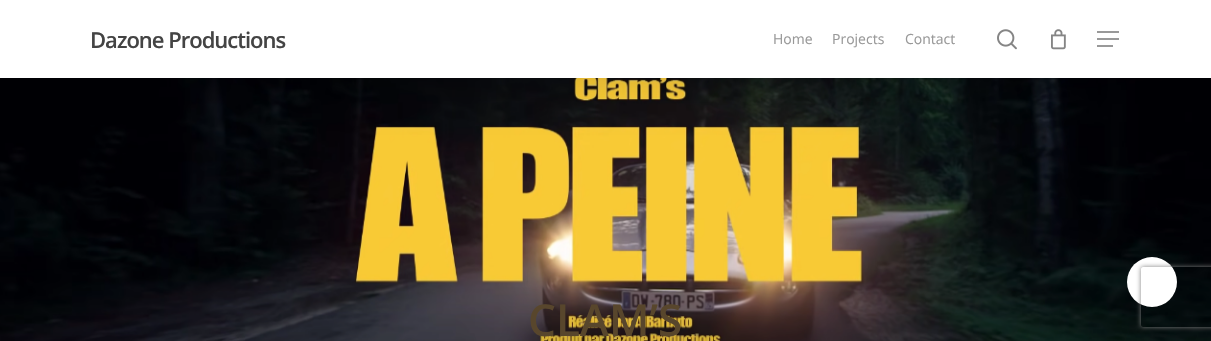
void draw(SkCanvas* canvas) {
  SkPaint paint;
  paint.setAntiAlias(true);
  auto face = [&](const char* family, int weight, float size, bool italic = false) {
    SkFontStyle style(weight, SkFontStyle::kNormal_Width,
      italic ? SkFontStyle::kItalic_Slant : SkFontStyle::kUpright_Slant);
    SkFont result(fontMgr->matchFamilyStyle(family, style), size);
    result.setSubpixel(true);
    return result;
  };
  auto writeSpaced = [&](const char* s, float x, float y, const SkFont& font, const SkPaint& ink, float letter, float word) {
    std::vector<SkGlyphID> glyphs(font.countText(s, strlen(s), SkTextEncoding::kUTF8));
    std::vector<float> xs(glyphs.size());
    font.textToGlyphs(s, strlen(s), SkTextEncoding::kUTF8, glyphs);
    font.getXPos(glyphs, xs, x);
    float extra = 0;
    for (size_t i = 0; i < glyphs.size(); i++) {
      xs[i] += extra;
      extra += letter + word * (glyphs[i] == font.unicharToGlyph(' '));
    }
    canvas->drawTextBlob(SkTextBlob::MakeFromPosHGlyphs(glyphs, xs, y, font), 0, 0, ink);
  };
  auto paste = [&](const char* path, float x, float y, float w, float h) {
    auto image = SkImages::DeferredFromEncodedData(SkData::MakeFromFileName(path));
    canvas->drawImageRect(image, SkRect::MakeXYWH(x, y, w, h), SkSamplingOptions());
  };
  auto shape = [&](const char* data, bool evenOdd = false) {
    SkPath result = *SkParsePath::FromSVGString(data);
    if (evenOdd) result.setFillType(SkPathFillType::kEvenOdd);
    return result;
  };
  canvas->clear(0xffffffff);
  paste("img/3.png", 0, 78, 1211, 263);
  paint.setColor(0x26000000);
  paint.setMaskFilter(SkMaskFilter::MakeBlur(kNormal_SkBlurStyle, 22.5f));
  canvas->drawRect(SkRect::MakeXYWH(0, 3, 1211, 78), paint);
  paint.setMaskFilter(nullptr);
  paint.setColor(0xffffffff);
  canvas->drawRect(SkRect::MakeXYWH(0, 0, 1211, 78), paint);
  paste("img/1.png", 997, 29, 20, 21);
  paste("img/2.png", 1051, 29, 15, 21);
  {
    const struct { float x, y, w, h; SkColor color; } items[] = {
      {1097, 31, 22, 2, 0xff999999},
      {1097, 45, 16, 2, 0xff999999},
      {1097, 38, 22, 2, 0xff999999},
    };
    for (auto [x, y, w, h, color] : items) {
      paint.setColor(color);
      canvas->drawRect(SkRect::MakeXYWH(x, y, w, h), paint);
    }
  }
  paint.setColor(0xffffffff);
  canvas->drawCircle(1152, 282, 25, paint);
  canvas->save();
  canvas->clipPath(shape("M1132 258H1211V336H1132ZM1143 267H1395C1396 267 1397 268 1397 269V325C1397 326 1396 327 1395 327H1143C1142 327 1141 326 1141 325V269C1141 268 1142 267 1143 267Z", true), true);
  paint.setColor(0xff808080);
  paint.setMaskFilter(SkMaskFilter::MakeBlur(kNormal_SkBlurStyle, 2.5f));
  canvas->drawRoundRect(SkRect::MakeXYWH(1141, 267, 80, 60), 2, 2, paint);
  paint.setMaskFilter(nullptr);
  canvas->restore();
  auto f0 = face("Open Sans", 600, 22);
  paint.setColor(0xff444444);
  writeSpaced("Dazone Productions", 90, 48, f0, paint, -1, 0);
  auto f1 = face("Open Sans", 400, 14);
  paint.setColor(0xff999999);
  {
    const struct { const char* s; float x, y; } items[] = {
      {"Home", 773, 44},
      {"Projects", 832, 44},
      {"Contact", 905, 44},
    };
    for (auto [s, x, y] : items) {
      canvas->drawString(s, x, y, f1, paint);
    }
  }
  auto f2 = face("Open Sans", 600, 44);
  paint.setColor(0xff58462c);
  canvas->drawString("CLAM’S", 528, 336, f2, paint);
}
